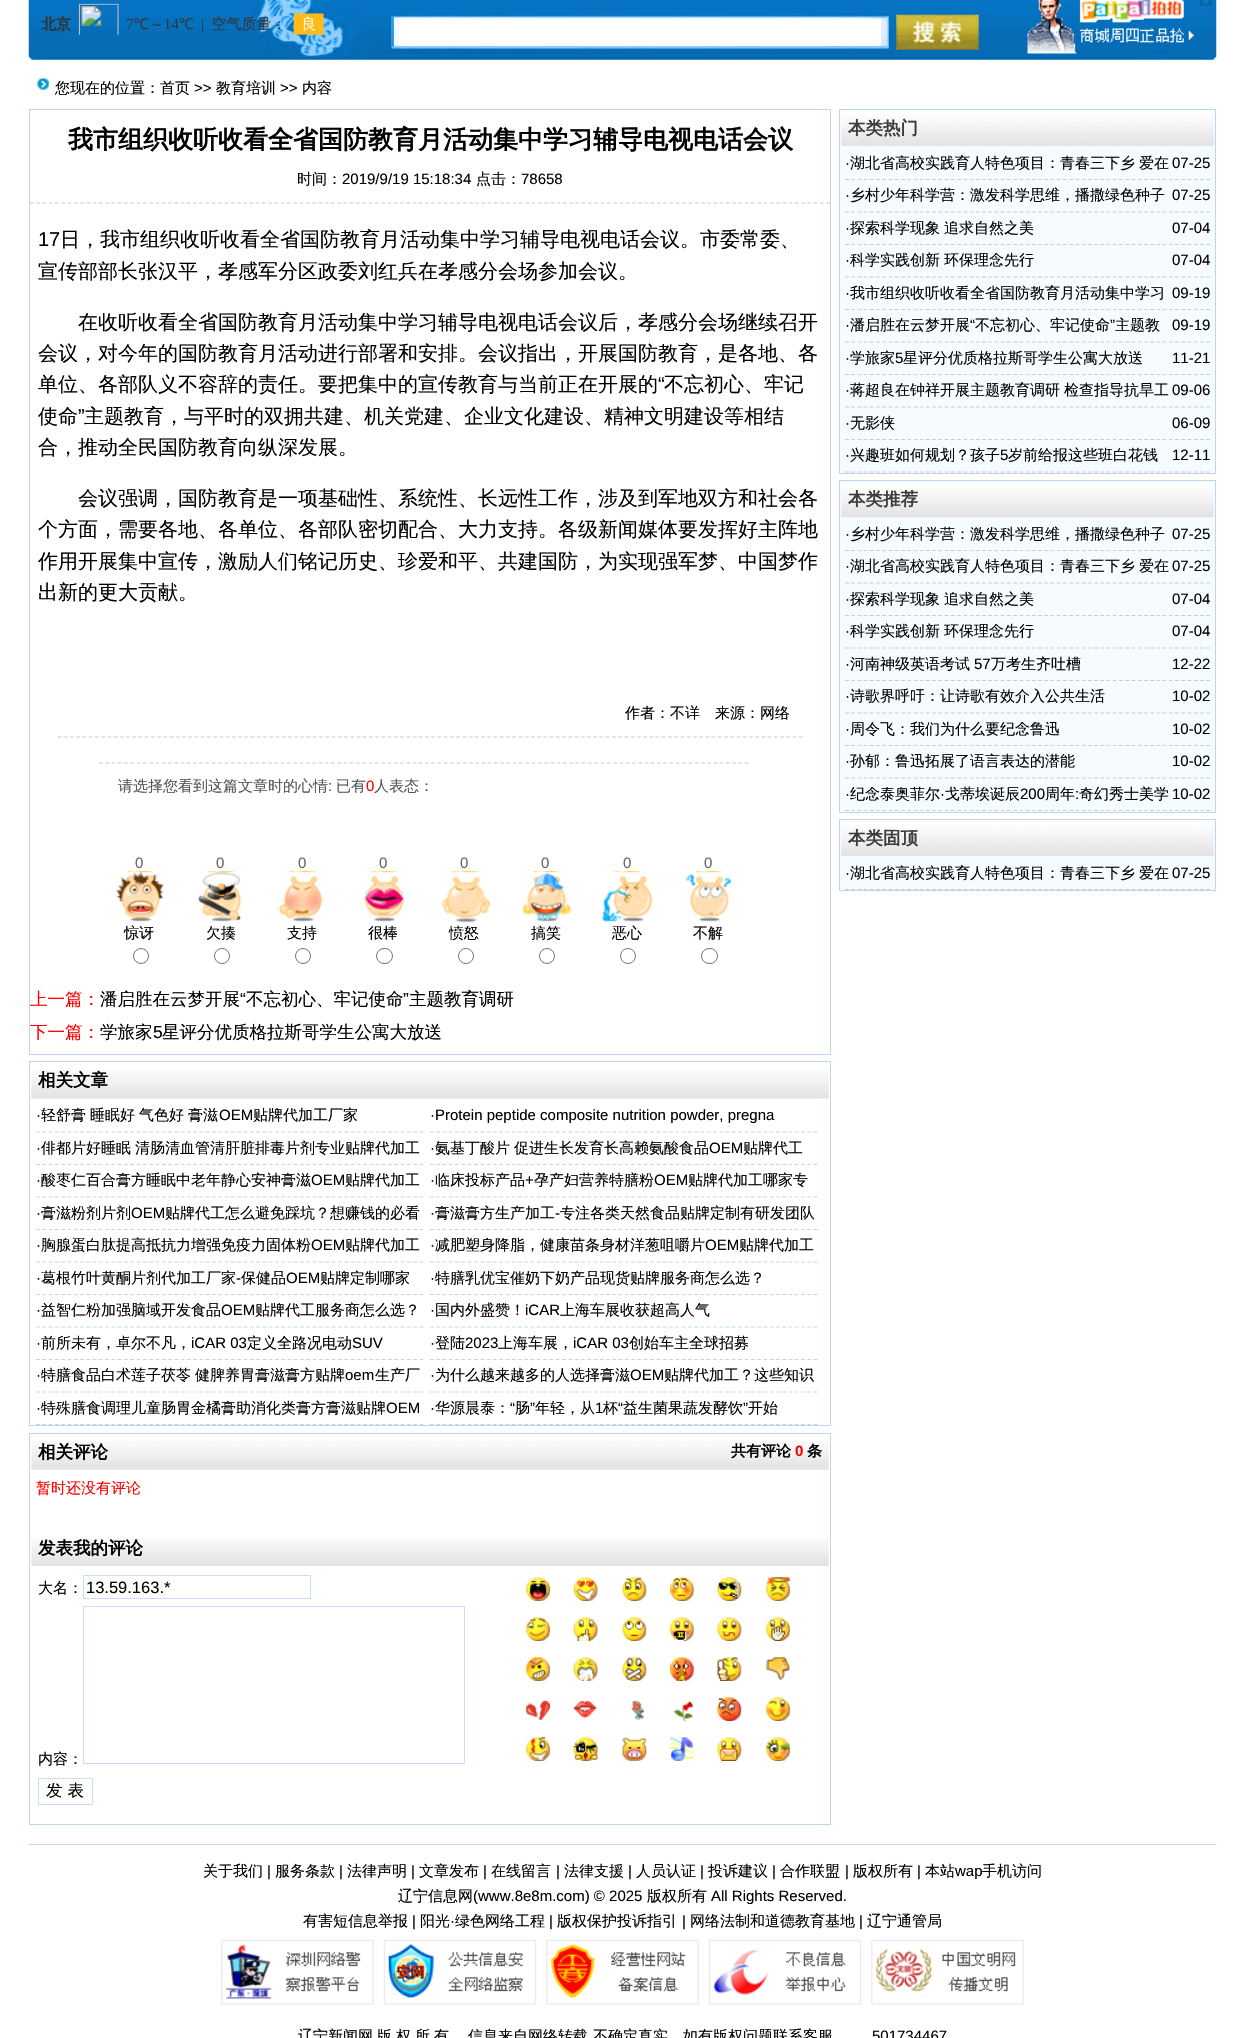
void draw(SkCanvas* canvas) {
  SkPaint paint;
  paint.setAntiAlias(true);
  auto face = [&](const char* family, int weight, float size, bool italic = false) {
    SkFontStyle style(weight, SkFontStyle::kNormal_Width,
      italic ? SkFontStyle::kItalic_Slant : SkFontStyle::kUpright_Slant);
    SkFont result(fontMgr->matchFamilyStyle(family, style), size);
    result.setSubpixel(true);
    return result;
  };
  auto writeSpaced = [&](const char* s, float x, float y, const SkFont& font, const SkPaint& ink, float letter, float word) {
    std::vector<SkGlyphID> glyphs(font.countText(s, strlen(s), SkTextEncoding::kUTF8));
    std::vector<float> xs(glyphs.size());
    font.textToGlyphs(s, strlen(s), SkTextEncoding::kUTF8, glyphs);
    font.getXPos(glyphs, xs, x);
    float extra = 0;
    for (size_t i = 0; i < glyphs.size(); i++) {
      xs[i] += extra;
      extra += letter + word * (glyphs[i] == font.unicharToGlyph(' '));
    }
    canvas->drawTextBlob(SkTextBlob::MakeFromPosHGlyphs(glyphs, xs, y, font), 0, 0, ink);
  };
  auto paste = [&](const char* path, float x, float y, float w, float h) {
    auto image = SkImages::DeferredFromEncodedData(SkData::MakeFromFileName(path));
    canvas->drawImageRect(image, SkRect::MakeXYWH(x, y, w, h), SkSamplingOptions());
  };
  auto shape = [&](const char* data, bool evenOdd = false) {
    SkPath result = *SkParsePath::FromSVGString(data);
    if (evenOdd) result.setFillType(SkPathFillType::kEvenOdd);
    return result;
  };
  canvas->clear(0xffffffff);
  paste("img/1.png", 28, 0, 1189, 61);
  paste("img/2.png", 41, 3, 283, 32);
  paste("img/3.png", 1027, 0, 167, 54);
  paint.setColor(0xffffffff);
  canvas->drawRect(SkRect::MakeXYWH(399, 19, 482, 27), paint);
  paste("img/4.png", 896, 14, 83, 36);
  paste("img/5.png", 37, 78, 12, 12);
  paint.setStroke(true);
  paint.setStrokeWidth(1);
  paint.setColor(0xffbdd7f2);
  canvas->drawRect(SkRect::MakeXYWH(29.5f, 109.5f, 801, 945), paint);
  paint.setStrokeWidth(1.2f);
  paint.setColor(0xffcccccc);
  paint.setPathEffect(SkDashPathEffect::Make({{3.75f, 2.52f}}, 0));
  canvas->drawPath(shape("M30 203H830"), paint);
  paint.setPathEffect(nullptr);
  paint.setPathEffect(SkDashPathEffect::Make({{3.75f, 2.48f}}, 0));
  canvas->drawPath(shape("M57.5 737H802.5"), paint);
  paint.setPathEffect(nullptr);
  paint.setPathEffect(SkDashPathEffect::Make({{3.75f, 2.52f}}, 0));
  canvas->drawPath(shape("M99 763H749"), paint);
  paint.setPathEffect(nullptr);
  paste("img/6.png", 127, 871, 26, 2);
  paste("img/7.png", 208, 871, 26, 2);
  paste("img/8.png", 290, 871, 25, 2);
  paste("img/9.png", 371, 871, 26, 2);
  paste("img/6.png", 452, 871, 26, 2);
  paste("img/7.png", 533, 871, 26, 2);
  paste("img/10.png", 615, 871, 25, 2);
  paste("img/9.png", 696, 871, 26, 2);
  paste("img/11.png", 116, 872, 48, 50);
  paste("img/12.png", 198, 872, 44, 50);
  paste("img/13.png", 278, 876, 45, 46);
  paste("img/14.png", 363, 875, 42, 47);
  paste("img/15.png", 441, 876, 49, 47);
  paste("img/16.png", 522, 873, 50, 50);
  paste("img/17.png", 602, 876, 51, 47);
  paste("img/18.png", 685, 873, 47, 49);
  paint.setStrokeWidth(1);
  paint.setColor(0xff767676);
  canvas->drawCircle(141, 956, 7.5f, paint);
  canvas->drawCircle(222, 956, 7.5f, paint);
  canvas->drawCircle(303, 956, 7.5f, paint);
  canvas->drawRoundRect(SkRect::MakeXYWH(376.5f, 948.5f, 16, 15), 7.5f, 7.5f, paint);
  canvas->drawCircle(466, 956, 7.5f, paint);
  canvas->drawCircle(547, 956, 7.5f, paint);
  canvas->drawCircle(628, 956, 7.5f, paint);
  canvas->drawRoundRect(SkRect::MakeXYWH(701.5f, 948.5f, 16, 15), 7.5f, 7.5f, paint);
  paint.setColor(0xffbdd7f2);
  canvas->drawRect(SkRect::MakeXYWH(29.5f, 1061.5f, 801, 364), paint);
  paste("img/19.png", 31, 1070, 798, 29);
  paint.setStrokeWidth(1.2f);
  paint.setPathEffect(SkDashPathEffect::Make({{3.75f, 2.54f}}, 0));
  canvas->drawPath(shape("M36 1132H424"), paint);
  paint.setPathEffect(nullptr);
  paint.setPathEffect(SkDashPathEffect::Make({{3.75f, 2.54f}}, 0));
  canvas->drawPath(shape("M430 1132H817.5"), paint);
  paint.setPathEffect(nullptr);
  paint.setPathEffect(SkDashPathEffect::Make({{3.75f, 2.54f}}, 0));
  canvas->drawPath(shape("M36 1164.5H424"), paint);
  paint.setPathEffect(nullptr);
  paint.setPathEffect(SkDashPathEffect::Make({{3.75f, 2.54f}}, 0));
  canvas->drawPath(shape("M430 1164.5H817.5"), paint);
  paint.setPathEffect(nullptr);
  paint.setPathEffect(SkDashPathEffect::Make({{3.75f, 2.54f}}, 0));
  canvas->drawPath(shape("M36 1197H424"), paint);
  paint.setPathEffect(nullptr);
  paint.setPathEffect(SkDashPathEffect::Make({{3.75f, 2.54f}}, 0));
  canvas->drawPath(shape("M430 1197H817.5"), paint);
  paint.setPathEffect(nullptr);
  paint.setPathEffect(SkDashPathEffect::Make({{3.75f, 2.54f}}, 0));
  canvas->drawPath(shape("M36 1229.5H424"), paint);
  paint.setPathEffect(nullptr);
  paint.setPathEffect(SkDashPathEffect::Make({{3.75f, 2.54f}}, 0));
  canvas->drawPath(shape("M430 1229.5H817.5"), paint);
  paint.setPathEffect(nullptr);
  paint.setPathEffect(SkDashPathEffect::Make({{3.75f, 2.54f}}, 0));
  canvas->drawPath(shape("M36 1262H424"), paint);
  paint.setPathEffect(nullptr);
  paint.setPathEffect(SkDashPathEffect::Make({{3.75f, 2.54f}}, 0));
  canvas->drawPath(shape("M430 1262H817.5"), paint);
  paint.setPathEffect(nullptr);
  paint.setPathEffect(SkDashPathEffect::Make({{3.75f, 2.54f}}, 0));
  canvas->drawPath(shape("M36 1294.5H424"), paint);
  paint.setPathEffect(nullptr);
  paint.setPathEffect(SkDashPathEffect::Make({{3.75f, 2.54f}}, 0));
  canvas->drawPath(shape("M430 1294.5H817.5"), paint);
  paint.setPathEffect(nullptr);
  paint.setPathEffect(SkDashPathEffect::Make({{3.75f, 2.54f}}, 0));
  canvas->drawPath(shape("M36 1327H424"), paint);
  paint.setPathEffect(nullptr);
  paint.setPathEffect(SkDashPathEffect::Make({{3.75f, 2.54f}}, 0));
  canvas->drawPath(shape("M430 1327H817.5"), paint);
  paint.setPathEffect(nullptr);
  paint.setPathEffect(SkDashPathEffect::Make({{3.75f, 2.54f}}, 0));
  canvas->drawPath(shape("M36 1359.5H424"), paint);
  paint.setPathEffect(nullptr);
  paint.setPathEffect(SkDashPathEffect::Make({{3.75f, 2.54f}}, 0));
  canvas->drawPath(shape("M430 1359.5H817.5"), paint);
  paint.setPathEffect(nullptr);
  paint.setPathEffect(SkDashPathEffect::Make({{3.75f, 2.54f}}, 0));
  canvas->drawPath(shape("M36 1392H424"), paint);
  paint.setPathEffect(nullptr);
  paint.setPathEffect(SkDashPathEffect::Make({{3.75f, 2.54f}}, 0));
  canvas->drawPath(shape("M430 1392H817.5"), paint);
  paint.setPathEffect(nullptr);
  paint.setPathEffect(SkDashPathEffect::Make({{3.75f, 2.54f}}, 0));
  canvas->drawPath(shape("M36 1424.5H424"), paint);
  paint.setPathEffect(nullptr);
  paint.setPathEffect(SkDashPathEffect::Make({{3.75f, 2.54f}}, 0));
  canvas->drawPath(shape("M430 1424.5H817.5"), paint);
  paint.setPathEffect(nullptr);
  paint.setStrokeWidth(1);
  canvas->drawRect(SkRect::MakeXYWH(29.5f, 1433.5f, 801, 391), paint);
  paste("img/20.png", 31, 1441, 798, 29);
  paste("img/21.png", 31, 1538, 798, 28);
  paint.setColor(0xffc6dfff);
  canvas->drawRect(SkRect::MakeXYWH(83.5f, 1575.5f, 227, 23), paint);
  canvas->drawRect(SkRect::MakeXYWH(83.5f, 1606.5f, 381, 157), paint);
  canvas->drawRect(SkRect::MakeXYWH(38.5f, 1778.5f, 54, 26), paint);
  paste("img/22.png", 526, 1577, 24, 24);
  paste("img/23.png", 573, 1577, 25, 24);
  paste("img/24.png", 622, 1577, 25, 24);
  paste("img/25.png", 670, 1577, 24, 24);
  paste("img/26.png", 717, 1577, 25, 24);
  paste("img/27.png", 766, 1577, 24, 24);
  paste("img/28.png", 526, 1617, 24, 24);
  paste("img/29.png", 573, 1617, 25, 24);
  paste("img/30.png", 622, 1617, 25, 24);
  paste("img/31.png", 670, 1617, 24, 24);
  paste("img/32.png", 717, 1617, 25, 24);
  paste("img/33.png", 766, 1617, 24, 24);
  paste("img/34.png", 526, 1657, 24, 24);
  paste("img/35.png", 573, 1657, 25, 24);
  paste("img/36.png", 622, 1657, 25, 24);
  paste("img/37.png", 670, 1657, 24, 24);
  paste("img/38.png", 717, 1657, 25, 24);
  paste("img/39.png", 766, 1657, 24, 23);
  paste("img/40.png", 526, 1699, 24, 21);
  paste("img/41.png", 573, 1700, 24, 18);
  paste("img/42.png", 631, 1700, 13, 20);
  paste("img/43.png", 673, 1700, 20, 21);
  paste("img/44.png", 717, 1697, 25, 24);
  paste("img/45.png", 766, 1697, 24, 24);
  paste("img/46.png", 526, 1737, 24, 24);
  paste("img/47.png", 573, 1737, 25, 24);
  paste("img/48.png", 622, 1737, 25, 24);
  paste("img/49.png", 670, 1737, 24, 24);
  paste("img/50.png", 717, 1737, 25, 24);
  paste("img/51.png", 766, 1737, 24, 24);
  paint.setStroke(false);
  paint.setColor(0xfff5fbff);
  canvas->drawRect(SkRect::MakeXYWH(839.5f, 109.5f, 376, 364), paint);
  paint.setStroke(true);
  paint.setColor(0xffbdd7f2);
  canvas->drawRect(SkRect::MakeXYWH(839.5f, 109.5f, 376, 364), paint);
  paste("img/52.png", 841, 111, 373, 35);
  paint.setStrokeWidth(1.2f);
  paint.setColor(0xffcccccc);
  paint.setPathEffect(SkDashPathEffect::Make({{3.75f, 2.48f}}, 0));
  canvas->drawPath(shape("M845 179.5H1210"), paint);
  paint.setPathEffect(nullptr);
  paint.setPathEffect(SkDashPathEffect::Make({{3.75f, 2.48f}}, 0));
  canvas->drawPath(shape("M845 212H1210"), paint);
  paint.setPathEffect(nullptr);
  paint.setPathEffect(SkDashPathEffect::Make({{3.75f, 2.48f}}, 0));
  canvas->drawPath(shape("M845 244.5H1210"), paint);
  paint.setPathEffect(nullptr);
  paint.setPathEffect(SkDashPathEffect::Make({{3.75f, 2.48f}}, 0));
  canvas->drawPath(shape("M845 277H1210"), paint);
  paint.setPathEffect(nullptr);
  paint.setPathEffect(SkDashPathEffect::Make({{3.75f, 2.48f}}, 0));
  canvas->drawPath(shape("M845 309.5H1210"), paint);
  paint.setPathEffect(nullptr);
  paint.setPathEffect(SkDashPathEffect::Make({{3.75f, 2.48f}}, 0));
  canvas->drawPath(shape("M845 342H1210"), paint);
  paint.setPathEffect(nullptr);
  paint.setPathEffect(SkDashPathEffect::Make({{3.75f, 2.48f}}, 0));
  canvas->drawPath(shape("M845 374.5H1210"), paint);
  paint.setPathEffect(nullptr);
  paint.setPathEffect(SkDashPathEffect::Make({{3.75f, 2.48f}}, 0));
  canvas->drawPath(shape("M845 407H1210"), paint);
  paint.setPathEffect(nullptr);
  paint.setPathEffect(SkDashPathEffect::Make({{3.75f, 2.48f}}, 0));
  canvas->drawPath(shape("M845 439.5H1210"), paint);
  paint.setPathEffect(nullptr);
  paint.setPathEffect(SkDashPathEffect::Make({{3.75f, 2.48f}}, 0));
  canvas->drawPath(shape("M845 472H1210"), paint);
  paint.setPathEffect(nullptr);
  paint.setStroke(false);
  paint.setColor(0xfff5fbff);
  canvas->drawRect(SkRect::MakeXYWH(839.5f, 480.5f, 376, 332), paint);
  paint.setStroke(true);
  paint.setStrokeWidth(1);
  paint.setColor(0xffbdd7f2);
  canvas->drawRect(SkRect::MakeXYWH(839.5f, 480.5f, 376, 332), paint);
  paste("img/53.png", 841, 482, 373, 36);
  paint.setStrokeWidth(1.2f);
  paint.setColor(0xffcccccc);
  paint.setPathEffect(SkDashPathEffect::Make({{3.75f, 2.48f}}, 0));
  canvas->drawPath(shape("M845 550.5H1210"), paint);
  paint.setPathEffect(nullptr);
  paint.setPathEffect(SkDashPathEffect::Make({{3.75f, 2.48f}}, 0));
  canvas->drawPath(shape("M845 583H1210"), paint);
  paint.setPathEffect(nullptr);
  paint.setPathEffect(SkDashPathEffect::Make({{3.75f, 2.48f}}, 0));
  canvas->drawPath(shape("M845 615.5H1210"), paint);
  paint.setPathEffect(nullptr);
  paint.setPathEffect(SkDashPathEffect::Make({{3.75f, 2.48f}}, 0));
  canvas->drawPath(shape("M845 648H1210"), paint);
  paint.setPathEffect(nullptr);
  paint.setPathEffect(SkDashPathEffect::Make({{3.75f, 2.48f}}, 0));
  canvas->drawPath(shape("M845 680.5H1210"), paint);
  paint.setPathEffect(nullptr);
  paint.setPathEffect(SkDashPathEffect::Make({{3.75f, 2.48f}}, 0));
  canvas->drawPath(shape("M845 713H1210"), paint);
  paint.setPathEffect(nullptr);
  paint.setPathEffect(SkDashPathEffect::Make({{3.75f, 2.48f}}, 0));
  canvas->drawPath(shape("M845 745.5H1210"), paint);
  paint.setPathEffect(nullptr);
  paint.setPathEffect(SkDashPathEffect::Make({{3.75f, 2.48f}}, 0));
  canvas->drawPath(shape("M845 778H1210"), paint);
  paint.setPathEffect(nullptr);
  paint.setPathEffect(SkDashPathEffect::Make({{3.75f, 2.48f}}, 0));
  canvas->drawPath(shape("M845 810.5H1210"), paint);
  paint.setPathEffect(nullptr);
  paint.setStroke(false);
  paint.setColor(0xfff5fbff);
  canvas->drawRect(SkRect::MakeXYWH(839.5f, 819.5f, 376, 71), paint);
  paint.setStroke(true);
  paint.setStrokeWidth(1);
  paint.setColor(0xffbdd7f2);
  canvas->drawRect(SkRect::MakeXYWH(839.5f, 819.5f, 376, 71), paint);
  paste("img/52.png", 841, 821, 373, 35);
  paint.setStrokeWidth(1.2f);
  paint.setColor(0xffcccccc);
  paint.setPathEffect(SkDashPathEffect::Make({{3.75f, 2.48f}}, 0));
  canvas->drawPath(shape("M845 889.5H1210"), paint);
  paint.setPathEffect(nullptr);
  paint.setStroke(false);
  paint.setColor(0xffc6dfff);
  canvas->drawRect(SkRect::MakeXYWH(29, 1844, 1187, 1), paint);
  paste("img/54.png", 221, 1939, 153, 66);
  paste("img/55.png", 383, 1939, 154, 66);
  paste("img/56.png", 546, 1939, 153, 66);
  paste("img/57.png", 708, 1939, 154, 66);
  paste("img/58.png", 871, 1939, 153, 66);
  auto f0 = face("WenQuanYi Zen Hei", 500, 15);
  paint.setColor(0xff000000);
  canvas->drawString("您现在的位置：首页", 55, 93, f0, paint);
  auto f1 = face("Liberation Sans", 400, 15);
  canvas->drawString(">>", 194, 93, f1, paint);
  canvas->drawString("教育培训", 216, 93, f0, paint);
  canvas->drawString(">>", 280, 93, f1, paint);
  canvas->drawString("内容", 302, 93, f0, paint);
  auto f2 = face("WenQuanYi Zen Hei", 700, 25);
  canvas->drawString("我市组织收听收看全省国防教育月活动集中学习辅导电视电话会议", 68, 148, f2, paint);
  canvas->drawString("时间：", 297, 184, f0, paint);
  canvas->drawString("2019/9/19 15:18:34", 342, 184, f1, paint);
  canvas->drawString("点击：", 476, 184, f0, paint);
  canvas->drawString("78658", 521, 184, f1, paint);
  auto f3 = face("Liberation Sans", 400, 20);
  canvas->drawString("17", 38, 246, f3, paint);
  auto f4 = face("WenQuanYi Zen Hei", 500, 20);
  {
    const struct { const char* s; float x, y; } items[] = {
      {"日，我市组织收听收看全省国防教育月活动集中学习辅导电视电话会议。市委常委、", 60, 246},
      {"宣传部部长张汉平，孝感军分区政委刘红兵在孝感分会场参加会议。", 38, 278},
      {"在收听收看全省国防教育月活动集中学习辅导电视电话会议后，孝感分会场继续召开", 78, 329},
      {"会议，对今年的国防教育月活动进行部署和安排。会议指出，开展国防教育，是各地、各", 38, 360},
      {"单位、各部队义不容辞的责任。要把集中的宣传教育与当前正在开展的", 38, 391},
    };
    for (auto [s, x, y] : items) {
      canvas->drawString(s, x, y, f4, paint);
    }
  }
  canvas->drawString("“", 658, 391, f3, paint);
  canvas->drawString("不忘初心、牢记", 664, 391, f4, paint);
  canvas->drawString("使命", 38, 423, f4, paint);
  canvas->drawString("”", 78, 423, f3, paint);
  {
    const struct { const char* s; float x, y; } items[] = {
      {"主题教育，与平时的双拥共建、机关党建、企业文化建设、精神文明建设等相结", 84, 423},
      {"合，推动全民国防教育向纵深发展。", 38, 454},
      {"会议强调，国防教育是一项基础性、系统性、长远性工作，涉及到军地双方和社会各", 78, 505},
      {"个方面，需要各地、各单位、各部队密切配合、大力支持。各级新闻媒体要发挥好主阵地", 38, 536},
      {"作用开展集中宣传，激励人们铭记历史、珍爱和平、共建国防，为实现强军梦、中国梦作", 38, 568},
      {"出新的更大贡献。", 38, 599},
    };
    for (auto [s, x, y] : items) {
      canvas->drawString(s, x, y, f4, paint);
    }
  }
  canvas->drawString("作者：不详　来源：网络", 625, 718, f0, paint);
  paint.setColor(0xff555555);
  canvas->drawString("请选择您看到这篇文章时的心情", 118, 791, f0, paint);
  canvas->drawString(":", 328, 791, f1, paint);
  canvas->drawString("已有", 336, 791, f0, paint);
  paint.setColor(0xffff0000);
  canvas->drawString("0", 366, 791, f1, paint);
  paint.setColor(0xff555555);
  canvas->drawString("人表态：", 374, 791, f0, paint);
  paint.setColor(0xff666666);
  {
    const struct { const char* s; float x, y; } items[] = {
      {"0", 135, 868},
      {"0", 216, 868},
      {"0", 298, 868},
      {"0", 379, 868},
      {"0", 460, 868},
      {"0", 541, 868},
      {"0", 623, 868},
      {"0", 704, 868},
    };
    for (auto [s, x, y] : items) {
      canvas->drawString(s, x, y, f1, paint);
    }
  }
  paint.setColor(0xff000000);
  {
    const struct { const char* s; float x, y; } items[] = {
      {"惊讶", 124, 938},
      {"欠揍", 206, 938},
      {"支持", 287, 938},
      {"很棒", 368, 938},
      {"愤怒", 449, 938},
      {"搞笑", 531, 938},
      {"恶心", 612, 938},
      {"不解", 693, 938},
    };
    for (auto [s, x, y] : items) {
      canvas->drawString(s, x, y, f0, paint);
    }
  }
  auto f5 = face("WenQuanYi Zen Hei", 500, 17.5f);
  paint.setColor(0xffff0000);
  canvas->drawString("上一篇：", 30, 1005, f5, paint);
  paint.setColor(0xff000000);
  canvas->drawString("潘启胜在云梦开展", 100, 1005, f5, paint);
  auto f6 = face("Liberation Sans", 400, 17.5f);
  canvas->drawString("“", 240, 1005, f6, paint);
  canvas->drawString("不忘初心、牢记使命", 246, 1005, f5, paint);
  canvas->drawString("”", 403, 1005, f6, paint);
  canvas->drawString("主题教育调研", 409, 1005, f5, paint);
  paint.setColor(0xffff0000);
  canvas->drawString("下一篇：", 30, 1038, f5, paint);
  paint.setColor(0xff000000);
  canvas->drawString("学旅家", 100, 1038, f5, paint);
  canvas->drawString("5", 153, 1038, f6, paint);
  canvas->drawString("星评分优质格拉斯哥学生公寓大放送", 162, 1038, f5, paint);
  auto f7 = face("WenQuanYi Zen Hei", 700, 17.5f);
  canvas->drawString("相关文章", 38, 1086, f7, paint);
  canvas->drawString("·", 36, 1120, f1, paint);
  writeSpaced("轻舒膏 睡眠好 气色好 膏滋", 41, 1120, f0, paint, 0, -0.5f);
  canvas->drawString("OEM", 219, 1120, f1, paint);
  canvas->drawString("贴牌代加工厂家", 253, 1120, f0, paint);
  canvas->drawString("·Protein peptide composite nutrition powder, pregna", 430, 1120, f1, paint);
  canvas->drawString("·", 36, 1153, f1, paint);
  writeSpaced("俳都片好睡眠 清肠清血管清肝脏排毒片剂专业贴牌代加工", 41, 1153, f0, paint, 0, -0.5f);
  canvas->drawString("·", 430, 1153, f1, paint);
  writeSpaced("氨基丁酸片 促进生长发育长高赖氨酸食品", 435, 1153, f0, paint, 0, -0.5f);
  canvas->drawString("OEM", 709, 1153, f1, paint);
  canvas->drawString("贴牌代工", 743, 1153, f0, paint);
  canvas->drawString("·", 36, 1185, f1, paint);
  canvas->drawString("酸枣仁百合膏方睡眠中老年静心安神膏滋", 41, 1185, f0, paint);
  canvas->drawString("OEM", 311, 1185, f1, paint);
  canvas->drawString("贴牌代加工", 345, 1185, f0, paint);
  canvas->drawString("·", 430, 1185, f1, paint);
  canvas->drawString("临床投标产品", 435, 1185, f0, paint);
  canvas->drawString("+", 525, 1185, f1, paint);
  canvas->drawString("孕产妇营养特膳粉", 534, 1185, f0, paint);
  canvas->drawString("OEM", 654, 1185, f1, paint);
  canvas->drawString("贴牌代加工哪家专", 688, 1185, f0, paint);
  canvas->drawString("·", 36, 1218, f1, paint);
  canvas->drawString("膏滋粉剂片剂", 41, 1218, f0, paint);
  canvas->drawString("OEM", 131, 1218, f1, paint);
  canvas->drawString("贴牌代工怎么避免踩坑？想赚钱的必看", 165, 1218, f0, paint);
  canvas->drawString("·", 430, 1218, f1, paint);
  canvas->drawString("膏滋膏方生产加工", 435, 1218, f0, paint);
  canvas->drawString("-", 555, 1218, f1, paint);
  canvas->drawString("专注各类天然食品贴牌定制有研发团队", 560, 1218, f0, paint);
  canvas->drawString("·", 36, 1250, f1, paint);
  canvas->drawString("胸腺蛋白肽提高抵抗力增强免疫力固体粉", 41, 1250, f0, paint);
  canvas->drawString("OEM", 311, 1250, f1, paint);
  canvas->drawString("贴牌代加工", 345, 1250, f0, paint);
  canvas->drawString("·", 430, 1250, f1, paint);
  canvas->drawString("减肥塑身降脂，健康苗条身材洋葱咀嚼片", 435, 1250, f0, paint);
  canvas->drawString("OEM", 705, 1250, f1, paint);
  canvas->drawString("贴牌代加工", 739, 1250, f0, paint);
  canvas->drawString("·", 36, 1283, f1, paint);
  canvas->drawString("葛根竹叶黄酮片剂代加工厂家", 41, 1283, f0, paint);
  canvas->drawString("-", 236, 1283, f1, paint);
  canvas->drawString("保健品", 241, 1283, f0, paint);
  canvas->drawString("OEM", 286, 1283, f1, paint);
  canvas->drawString("贴牌定制哪家", 320, 1283, f0, paint);
  canvas->drawString("·", 430, 1283, f1, paint);
  canvas->drawString("特膳乳优宝催奶下奶产品现货贴牌服务商怎么选？", 435, 1283, f0, paint);
  canvas->drawString("·", 36, 1315, f1, paint);
  canvas->drawString("益智仁粉加强脑域开发食品", 41, 1315, f0, paint);
  canvas->drawString("OEM", 221, 1315, f1, paint);
  canvas->drawString("贴牌代工服务商怎么选？", 255, 1315, f0, paint);
  canvas->drawString("·", 430, 1315, f1, paint);
  canvas->drawString("国内外盛赞！", 435, 1315, f0, paint);
  canvas->drawString("iCAR", 525, 1315, f1, paint);
  canvas->drawString("上海车展收获超高人气", 560, 1315, f0, paint);
  canvas->drawString("·", 36, 1348, f1, paint);
  canvas->drawString("前所未有，卓尔不凡，", 41, 1348, f0, paint);
  canvas->drawString("iCAR 03", 191, 1348, f1, paint);
  canvas->drawString("定义全路况电动", 247, 1348, f0, paint);
  canvas->drawString("SUV", 352, 1348, f1, paint);
  canvas->drawString("·", 430, 1348, f1, paint);
  canvas->drawString("登陆", 435, 1348, f0, paint);
  canvas->drawString("2023", 465, 1348, f1, paint);
  canvas->drawString("上海车展，", 498, 1348, f0, paint);
  canvas->drawString("iCAR 03", 573, 1348, f1, paint);
  canvas->drawString("创始车主全球招募", 629, 1348, f0, paint);
  canvas->drawString("·", 36, 1380, f1, paint);
  writeSpaced("特膳食品白术莲子茯苓 健脾养胃膏滋膏方贴牌", 41, 1380, f0, paint, 0, -0.5f);
  canvas->drawString("oem", 345, 1380, f1, paint);
  canvas->drawString("生产厂", 375, 1380, f0, paint);
  canvas->drawString("·", 430, 1380, f1, paint);
  canvas->drawString("为什么越来越多的人选择膏滋", 435, 1380, f0, paint);
  canvas->drawString("OEM", 630, 1380, f1, paint);
  canvas->drawString("贴牌代加工？这些知识", 664, 1380, f0, paint);
  canvas->drawString("·", 36, 1413, f1, paint);
  canvas->drawString("特殊膳食调理儿童肠胃金橘膏助消化类膏方膏滋贴牌", 41, 1413, f0, paint);
  canvas->drawString("OEM", 386, 1413, f1, paint);
  canvas->drawString("华源晨泰：", 435, 1413, f0, paint);
  canvas->drawString("“", 510, 1413, f1, paint);
  canvas->drawString("肠", 515, 1413, f0, paint);
  canvas->drawString("”", 530, 1413, f1, paint);
  canvas->drawString("年轻，从", 535, 1413, f0, paint);
  canvas->drawString("1", 595, 1413, f1, paint);
  canvas->drawString("杯", 603, 1413, f0, paint);
  canvas->drawString("“", 618, 1413, f1, paint);
  canvas->drawString("益生菌果蔬发酵饮", 623, 1413, f0, paint);
  canvas->drawString("”", 743, 1413, f1, paint);
  canvas->drawString("开始", 748, 1413, f0, paint);
  canvas->drawString("·", 430, 1413, f1, paint);
  canvas->drawString("相关评论", 38, 1458, f7, paint);
  auto f8 = face("WenQuanYi Zen Hei", 700, 15);
  canvas->drawString("共有评论", 731, 1456, f8, paint);
  auto f9 = face("Liberation Sans", 700, 15);
  paint.setColor(0xffff0000);
  canvas->drawString("0", 795, 1456, f9, paint);
  paint.setColor(0xff000000);
  canvas->drawString("条", 807, 1456, f8, paint);
  paint.setColor(0xffff0000);
  canvas->drawString("暂时还没有评论", 36, 1493, f0, paint);
  paint.setColor(0xff000000);
  canvas->drawString("发表我的评论", 38, 1554, f7, paint);
  canvas->drawString("大名：", 38, 1593, f0, paint);
  auto f10 = face("Liberation Sans", 400, 16.5f);
  canvas->drawString("13.59.163.*", 86, 1593, f10, paint);
  canvas->drawString("内容：", 38, 1764, f0, paint);
  auto f11 = face("WenQuanYi Zen Hei", 500, 16.5f);
  canvas->drawString("发 表", 46, 1796, f11, paint);
  paint.setColor(0xff3a3c3d);
  canvas->drawString("本类热门", 848, 134, f7, paint);
  paint.setColor(0xff000000);
  canvas->drawString("·", 845, 168, f1, paint);
  writeSpaced("湖北省高校实践育人特色项目：青春三下乡 爱在", 850, 168, f0, paint, 0, -0.5f);
  canvas->drawString("07-25", 1172, 168, f1, paint);
  canvas->drawString("·", 845, 200, f1, paint);
  canvas->drawString("乡村少年科学营：激发科学思维，播撒绿色种子", 850, 200, f0, paint);
  canvas->drawString("07-25", 1172, 200, f1, paint);
  canvas->drawString("·", 845, 233, f1, paint);
  writeSpaced("探索科学现象 追求自然之美", 850, 233, f0, paint, 0, -0.5f);
  canvas->drawString("07-04", 1172, 233, f1, paint);
  canvas->drawString("·", 845, 265, f1, paint);
  canvas->drawString("科学实践创新", 850, 265, f0, paint);
  canvas->drawString("环保理念先行", 944, 265, f0, paint);
  canvas->drawString("07-04", 1172, 265, f1, paint);
  canvas->drawString("·", 845, 298, f1, paint);
  canvas->drawString("我市组织收听收看全省国防教育月活动集中学习", 850, 298, f0, paint);
  canvas->drawString("09-19", 1172, 298, f1, paint);
  canvas->drawString("·", 845, 330, f1, paint);
  canvas->drawString("潘启胜在云梦开展", 850, 330, f0, paint);
  canvas->drawString("“", 970, 330, f1, paint);
  canvas->drawString("不忘初心、牢记使命", 975, 330, f0, paint);
  canvas->drawString("”", 1110, 330, f1, paint);
  canvas->drawString("主题教", 1115, 330, f0, paint);
  canvas->drawString("09-19", 1172, 330, f1, paint);
  canvas->drawString("·", 845, 363, f1, paint);
  canvas->drawString("学旅家", 850, 363, f0, paint);
  canvas->drawString("5", 895, 363, f1, paint);
  canvas->drawString("星评分优质格拉斯哥学生公寓大放送", 903, 363, f0, paint);
  canvas->drawString("11-21", 1172, 363, f1, paint);
  canvas->drawString("·", 845, 395, f1, paint);
  writeSpaced("蒋超良在钟祥开展主题教育调研 检查指导抗旱工", 850, 395, f0, paint, 0, -0.5f);
  canvas->drawString("09-06", 1172, 395, f1, paint);
  canvas->drawString("·", 845, 428, f1, paint);
  canvas->drawString("无影侠", 850, 428, f0, paint);
  canvas->drawString("06-09", 1172, 428, f1, paint);
  canvas->drawString("·", 845, 460, f1, paint);
  canvas->drawString("兴趣班如何规划？孩子", 850, 460, f0, paint);
  canvas->drawString("5", 1000, 460, f1, paint);
  canvas->drawString("岁前给报这些班白花钱", 1008, 460, f0, paint);
  canvas->drawString("12-11", 1172, 460, f1, paint);
  paint.setColor(0xff3a3c3d);
  canvas->drawString("本类推荐", 848, 505, f7, paint);
  paint.setColor(0xff000000);
  canvas->drawString("·", 845, 539, f1, paint);
  canvas->drawString("乡村少年科学营：激发科学思维，播撒绿色种子", 850, 539, f0, paint);
  canvas->drawString("07-25", 1172, 539, f1, paint);
  canvas->drawString("·", 845, 571, f1, paint);
  writeSpaced("湖北省高校实践育人特色项目：青春三下乡 爱在", 850, 571, f0, paint, 0, -0.5f);
  canvas->drawString("07-25", 1172, 571, f1, paint);
  canvas->drawString("·", 845, 604, f1, paint);
  writeSpaced("探索科学现象 追求自然之美", 850, 604, f0, paint, 0, -0.5f);
  canvas->drawString("07-04", 1172, 604, f1, paint);
  canvas->drawString("·", 845, 636, f1, paint);
  canvas->drawString("科学实践创新", 850, 636, f0, paint);
  canvas->drawString("环保理念先行", 944, 636, f0, paint);
  canvas->drawString("07-04", 1172, 636, f1, paint);
  canvas->drawString("·", 845, 669, f1, paint);
  canvas->drawString("河南神级英语考试", 850, 669, f0, paint);
  canvas->drawString("57", 974, 669, f1, paint);
  canvas->drawString("万考生齐吐槽", 991, 669, f0, paint);
  canvas->drawString("12-22", 1172, 669, f1, paint);
  canvas->drawString("·", 845, 701, f1, paint);
  canvas->drawString("诗歌界呼吁：让诗歌有效介入公共生活", 850, 701, f0, paint);
  canvas->drawString("10-02", 1172, 701, f1, paint);
  canvas->drawString("·", 845, 734, f1, paint);
  canvas->drawString("周令飞：我们为什么要纪念鲁迅", 850, 734, f0, paint);
  canvas->drawString("10-02", 1172, 734, f1, paint);
  canvas->drawString("·", 845, 766, f1, paint);
  canvas->drawString("孙郁：鲁迅拓展了语言表达的潜能", 850, 766, f0, paint);
  canvas->drawString("10-02", 1172, 766, f1, paint);
  canvas->drawString("·", 845, 799, f1, paint);
  canvas->drawString("纪念泰奥菲尔", 850, 799, f0, paint);
  canvas->drawString("·", 940, 799, f1, paint);
  canvas->drawString("戈蒂埃诞辰", 945, 799, f0, paint);
  canvas->drawString("200", 1020, 799, f1, paint);
  canvas->drawString("周年", 1045, 799, f0, paint);
  canvas->drawString(":", 1075, 799, f1, paint);
  canvas->drawString("奇幻秀士美学", 1079, 799, f0, paint);
  canvas->drawString("10-02", 1172, 799, f1, paint);
  paint.setColor(0xff3a3c3d);
  canvas->drawString("本类固顶", 848, 844, f7, paint);
  paint.setColor(0xff000000);
  canvas->drawString("·", 845, 878, f1, paint);
  writeSpaced("湖北省高校实践育人特色项目：青春三下乡 爱在", 850, 878, f0, paint, 0, -0.5f);
  canvas->drawString("07-25", 1172, 878, f1, paint);
  canvas->drawString("关于我们", 203, 1876, f0, paint);
  canvas->drawString("|", 267, 1876, f1, paint);
  canvas->drawString("服务条款", 275, 1876, f0, paint);
  canvas->drawString("|", 339, 1876, f1, paint);
  canvas->drawString("法律声明", 347, 1876, f0, paint);
  canvas->drawString("|", 411, 1876, f1, paint);
  canvas->drawString("文章发布", 419, 1876, f0, paint);
  canvas->drawString("|", 483, 1876, f1, paint);
  canvas->drawString("在线留言", 491, 1876, f0, paint);
  canvas->drawString("|", 556, 1876, f1, paint);
  canvas->drawString("法律支援", 564, 1876, f0, paint);
  canvas->drawString("|", 628, 1876, f1, paint);
  canvas->drawString("人员认证", 636, 1876, f0, paint);
  canvas->drawString("|", 700, 1876, f1, paint);
  canvas->drawString("投诉建议", 708, 1876, f0, paint);
  canvas->drawString("|", 772, 1876, f1, paint);
  canvas->drawString("合作联盟", 780, 1876, f0, paint);
  canvas->drawString("|", 845, 1876, f1, paint);
  canvas->drawString("版权所有", 853, 1876, f0, paint);
  canvas->drawString("|", 917, 1876, f1, paint);
  canvas->drawString("本站", 925, 1876, f0, paint);
  canvas->drawString("wap", 955, 1876, f1, paint);
  canvas->drawString("手机访问", 982, 1876, f0, paint);
  canvas->drawString("辽宁信息网", 398, 1901, f0, paint);
  canvas->drawString("(www.8e8m.com) © 2025", 473, 1901, f1, paint);
  canvas->drawString("版权所有", 647, 1901, f0, paint);
  canvas->drawString("All Rights Reserved.", 711, 1901, f1, paint);
  canvas->drawString("有害短信息举报", 303, 1926, f0, paint);
  canvas->drawString("|", 412, 1926, f1, paint);
  canvas->drawString("阳光", 420, 1926, f0, paint);
  canvas->drawString("·", 450, 1926, f1, paint);
  canvas->drawString("绿色网络工程", 455, 1926, f0, paint);
  canvas->drawString("|", 549, 1926, f1, paint);
  canvas->drawString("版权保护投诉指引", 557, 1926, f0, paint);
  canvas->drawString("|", 682, 1926, f1, paint);
  canvas->drawString("网络法制和道德教育基地", 690, 1926, f0, paint);
  canvas->drawString("|", 859, 1926, f1, paint);
  canvas->drawString("辽宁通管局", 867, 1926, f0, paint);
  writeSpaced("辽宁新闻网 版 权 所 有 ，信息来自网络转载", 298, 2041, f0, paint, 0, -0.5f);
  canvas->drawString("不确定真实，如有版权问题联系客服", 593, 2041, f0, paint);
  canvas->drawString("501734467", 872, 2041, f1, paint);
}
